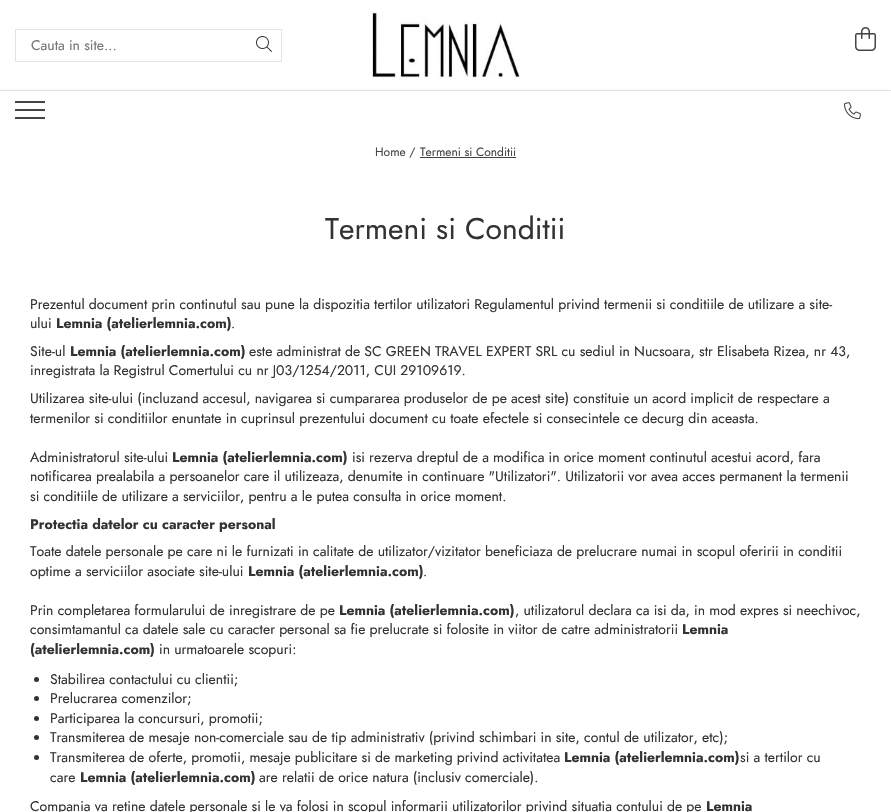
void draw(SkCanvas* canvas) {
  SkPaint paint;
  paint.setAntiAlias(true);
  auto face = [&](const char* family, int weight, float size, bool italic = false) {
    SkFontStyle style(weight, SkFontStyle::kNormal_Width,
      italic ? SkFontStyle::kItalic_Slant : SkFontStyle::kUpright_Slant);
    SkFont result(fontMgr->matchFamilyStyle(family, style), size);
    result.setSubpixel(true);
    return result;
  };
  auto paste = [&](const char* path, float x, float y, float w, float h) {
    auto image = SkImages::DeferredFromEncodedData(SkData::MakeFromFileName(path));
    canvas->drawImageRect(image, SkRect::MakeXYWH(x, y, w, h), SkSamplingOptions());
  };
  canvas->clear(0xffffffff);
  paint.setStroke(true);
  paint.setStrokeWidth(1);
  paint.setColor(0xffe3e3e3);
  canvas->drawRect(SkRect::MakeXYWH(15.5f, 29.5f, 266, 32), paint);
  paste("img/1.png", 256, 36, 16, 16);
  paste("img/2.png", 369, 10, 151, 68);
  paste("img/3.png", 855, 27, 21, 24);
  canvas->save();
  canvas->clipRect(SkRect::MakeXYWH(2, 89, 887, 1));
  paint.setStroke(false);
  paint.setColor(0x26000000);
  paint.setMaskFilter(SkMaskFilter::MakeBlur(kNormal_SkBlurStyle, 1.5f));
  canvas->drawRect(SkRect::MakeXYWH(0, 91, 891, 43), paint);
  paint.setMaskFilter(nullptr);
  canvas->restore();
  {
    const struct { float x, y, w, h; SkColor color; } items[] = {
      {0, 90, 891, 1, 0xffe3e3e3},
      {15, 109, 30, 2, 0xff444444},
      {15, 101, 30, 2, 0xff444444},
      {15, 117, 30, 2, 0xff444444},
    };
    for (auto [x, y, w, h, color] : items) {
      paint.setColor(color);
      canvas->drawRect(SkRect::MakeXYWH(x, y, w, h), paint);
    }
  }
  paste("img/4.png", 844, 102, 17, 18);
  paint.setColor(0xffffffff);
  canvas->drawRect(SkRect::MakeXYWH(0, 133, 891, 3), paint);
  paint.setColor(0xff444444);
  canvas->drawRect(SkRect::MakeXYWH(420, 157, 96, 1), paint);
  paint.setColor(0xff333333);
  canvas->drawCircle(36.5f, 679.5f, 2.5f, paint);
  canvas->drawCircle(36.5f, 698.5f, 2.5f, paint);
  canvas->drawCircle(36.5f, 718.5f, 2.5f, paint);
  canvas->drawCircle(36.5f, 737.5f, 2.5f, paint);
  canvas->drawCircle(36.5f, 757.5f, 2.5f, paint);
  auto f0 = face("Jost", 400, 14);
  paint.setColor(0xff757575);
  canvas->drawString("Cauta in site...", 31, 50, f0, paint);
  auto f1 = face("Jost", 400, 12);
  paint.setColor(0xff444444);
  canvas->drawString("Home /", 375, 156, f1, paint);
  canvas->drawString("Termeni si Conditii", 420, 156, f1, paint);
  auto f2 = face("Jost", 400, 30);
  paint.setColor(0xff333333);
  canvas->drawString("Termeni si Conditii", 325, 239, f2, paint);
  canvas->drawString("Prezentul document prin continutul sau pune la dispozitia tertilor utilizatori Regulamentul privind termenii si conditiile de utilizare a site-", 30, 309, f0, paint);
  canvas->drawString("ului", 30, 328, f0, paint);
  auto f3 = face("Jost", 700, 14);
  canvas->drawString("Lemnia (atelierlemnia.com)", 56, 328, f3, paint);
  canvas->drawString(".", 231, 328, f0, paint);
  canvas->drawString("Site-ul", 30, 356, f0, paint);
  canvas->drawString("Lemnia (atelierlemnia.com)", 70, 356, f3, paint);
  {
    const struct { const char* s; float x, y; } items[] = {
      {"este administrat de SC GREEN TRAVEL EXPERT SRL cu sediul in Nucsoara, str Elisabeta Rizea, nr 43,", 249, 356},
      {"inregistrata la Registrul Comertului cu nr J03/1254/2011, CUI 29109619.", 30, 375},
      {"Utilizarea site-ului (incluzand accesul, navigarea si cumpararea produselor de pe acest site) constituie un acord implicit de respectare a", 30, 403},
      {"termenilor si conditiilor enuntate in cuprinsul prezentului document cu toate efectele si consecintele ce decurg din aceasta.", 30, 423},
      {"Administratorul site-ului", 30, 462},
    };
    for (auto [s, x, y] : items) {
      canvas->drawString(s, x, y, f0, paint);
    }
  }
  canvas->drawString("Lemnia (atelierlemnia.com)", 172, 462, f3, paint);
  {
    const struct { const char* s; float x, y; } items[] = {
      {"isi rezerva dreptul de a modifica in orice moment continutul acestui acord, fara", 352, 462},
      {"notificarea prealabila a persoanelor care il utilizeaza, denumite in continuare \"Utilizatori\". Utilizatorii vor avea acces permanent la termenii", 30, 481},
      {"si conditiile de utilizare a serviciilor, pentru a le putea consulta in orice moment.", 30, 501},
    };
    for (auto [s, x, y] : items) {
      canvas->drawString(s, x, y, f0, paint);
    }
  }
  canvas->drawString("Protectia datelor cu caracter personal", 30, 529, f3, paint);
  canvas->drawString("Toate datele personale pe care ni le furnizati in calitate de utilizator/vizitator beneficiaza de prelucrare numai in scopul oferirii in conditii", 30, 556, f0, paint);
  canvas->drawString("optime a serviciilor asociate site-ului", 30, 576, f0, paint);
  canvas->drawString("Lemnia (atelierlemnia.com)", 248, 576, f3, paint);
  canvas->drawString(".", 423, 576, f0, paint);
  canvas->drawString("Prin completarea formularului de inregistrare de pe", 30, 615, f0, paint);
  canvas->drawString("Lemnia (atelierlemnia.com)", 339, 615, f3, paint);
  canvas->drawString(", utilizatorul declara ca isi da, in mod expres si neechivoc,", 515, 615, f0, paint);
  canvas->drawString("consimtamantul ca datele sale cu caracter personal sa fie prelucrate si folosite in viitor de catre administratorii", 30, 634, f0, paint);
  canvas->drawString("Lemnia", 682, 634, f3, paint);
  canvas->drawString("(atelierlemnia.com)", 30, 654, f3, paint);
  {
    const struct { const char* s; float x, y; } items[] = {
      {"in urmatoarele scopuri:", 159, 654},
      {"Stabilirea contactului cu clientii;", 50, 684},
      {"Prelucrarea comenzilor;", 50, 703},
      {"Participarea la concursuri, promotii;", 50, 723},
      {"Transmiterea de mesaje non-comerciale sau de tip administrativ (privind schimbari in site, contul de utilizator, etc);", 50, 742},
      {"Transmiterea de oferte, promotii, mesaje publicitare si de marketing privind activitatea", 50, 762},
    };
    for (auto [s, x, y] : items) {
      canvas->drawString(s, x, y, f0, paint);
    }
  }
  canvas->drawString("Lemnia (atelierlemnia.com)", 564, 762, f3, paint);
  canvas->drawString("si a tertilor cu", 740, 762, f0, paint);
  canvas->drawString("care", 50, 782, f0, paint);
  canvas->drawString("Lemnia (atelierlemnia.com)", 80, 782, f3, paint);
  canvas->drawString("are relatii de orice natura (inclusiv comerciale).", 259, 782, f0, paint);
  canvas->drawString("Compania va retine datele personale si le va folosi in scopul informarii utilizatorilor privind situatia contului de pe", 30, 811, f0, paint);
  canvas->drawString("Lemnia", 706, 811, f3, paint);
}
